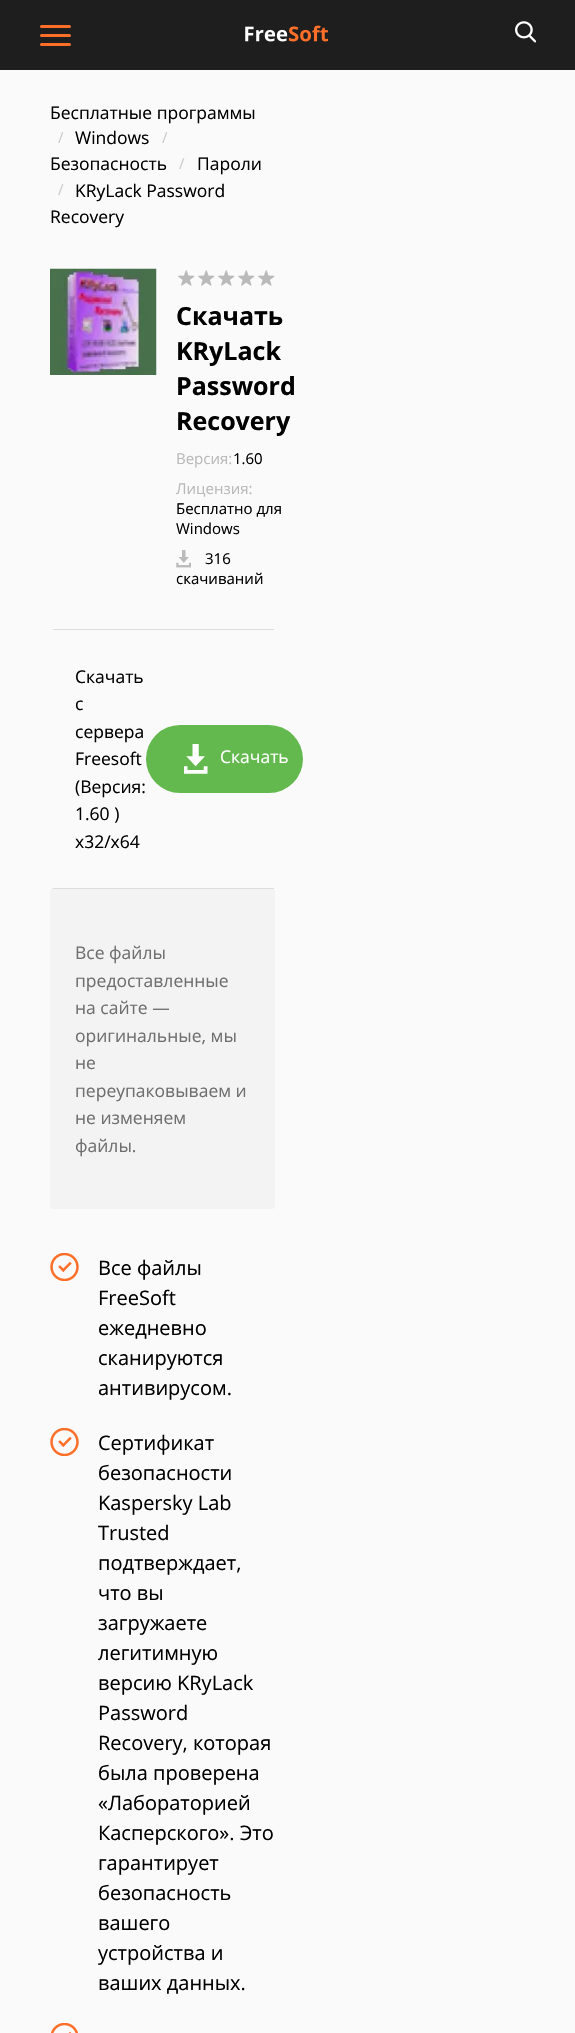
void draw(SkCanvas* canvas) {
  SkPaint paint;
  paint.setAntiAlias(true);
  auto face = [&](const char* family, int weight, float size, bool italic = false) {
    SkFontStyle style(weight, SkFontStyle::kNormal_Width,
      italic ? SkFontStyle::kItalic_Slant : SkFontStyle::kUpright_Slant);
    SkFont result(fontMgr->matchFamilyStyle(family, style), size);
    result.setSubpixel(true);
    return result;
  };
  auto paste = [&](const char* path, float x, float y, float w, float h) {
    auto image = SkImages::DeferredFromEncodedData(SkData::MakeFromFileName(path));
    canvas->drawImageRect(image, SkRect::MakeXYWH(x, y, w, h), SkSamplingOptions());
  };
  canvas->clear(0xfffafafa);
  paint.setColor(0xff1e1e1e);
  canvas->drawRect(SkRect::MakeXYWH(0, 0, 575, 70), paint);
  paint.setColor(0xfffd6f29);
  canvas->drawRoundRect(SkRect::MakeXYWH(40, 25, 31, 3), 1.5f, 1.5f, paint);
  canvas->drawRoundRect(SkRect::MakeXYWH(40, 34, 31, 3), 1.5f, 1.5f, paint);
  canvas->drawRoundRect(SkRect::MakeXYWH(40, 43, 31, 3), 1.5f, 1.5f, paint);
  paste("img/1.png", 245, 25, 84, 17);
  paste("img/2.png", 515, 21, 21, 22);
  paste("img/3.png", 50, 268, 107, 107);
  paste("img/4.png", 178, 270, 17, 16);
  paste("img/4.png", 198, 270, 17, 16);
  paste("img/4.png", 218, 270, 17, 16);
  paste("img/4.png", 238, 270, 17, 16);
  paste("img/4.png", 258, 270, 17, 16);
  paste("img/5.png", 176, 550, 15, 18);
  paint.setColor(0xffdcdcdc);
  canvas->drawRect(SkRect::MakeXYWH(53, 629, 221, 1), paint);
  paint.setColor(0xff63b94d);
  canvas->drawRoundRect(SkRect::MakeXYWH(146, 725, 157, 68), 34, 34, paint);
  paste("img/6.png", 184, 744, 24, 30);
  paint.setColor(0xfff3f3f3);
  canvas->drawRoundRect(SkRect::MakeXYWH(50, 888, 225, 321), 4, 4, paint);
  paint.setColor(0xffdcdcdc);
  canvas->drawRect(SkRect::MakeXYWH(53, 888, 221, 1), paint);
  paste("img/7.png", 50, 1253, 29, 28);
  paste("img/7.png", 50, 1428, 29, 28);
  paste("img/8.png", 51, 2023, 27, 10);
  auto f0 = face("Open Sans", 400, 17.5f);
  paint.setColor(0xff000000);
  canvas->drawString("Бесплатные программы", 50, 119, f0, paint);
  auto f1 = face("Open Sans", 400, 15);
  paint.setColor(0xffcccccc);
  canvas->drawString("/", 58, 143, f1, paint);
  paint.setColor(0xff000000);
  canvas->drawString("Windows", 75, 144, f0, paint);
  paint.setColor(0xffcccccc);
  canvas->drawString("/", 162, 143, f1, paint);
  paint.setColor(0xff000000);
  canvas->drawString("Безопасность", 50, 170, f0, paint);
  paint.setColor(0xffcccccc);
  canvas->drawString("/", 179, 169, f1, paint);
  paint.setColor(0xff000000);
  canvas->drawString("Пароли", 197, 170, f0, paint);
  paint.setColor(0xffcccccc);
  canvas->drawString("/", 58, 195, f1, paint);
  paint.setColor(0xff000000);
  canvas->drawString("KRyLack Password", 75, 197, f0, paint);
  canvas->drawString("Recovery", 50, 223, f0, paint);
  auto f2 = face("Open Sans", 700, 25);
  {
    const struct { const char* s; float x, y; } items[] = {
      {"Скачать", 176, 325},
      {"KRyLack", 176, 360},
      {"Password", 176, 395},
      {"Recovery", 176, 430},
    };
    for (auto [s, x, y] : items) {
      canvas->drawString(s, x, y, f2, paint);
    }
  }
  paint.setColor(0xffbababa);
  canvas->drawString("Версия:", 176, 464, f1, paint);
  paint.setColor(0xff000000);
  canvas->drawString("1.60", 233, 464, f1, paint);
  paint.setColor(0xffbababa);
  canvas->drawString("Лицензия:", 176, 494, f1, paint);
  paint.setColor(0xff000000);
  {
    const struct { const char* s; float x, y; } items[] = {
      {"Бесплатно для", 176, 514},
      {"Windows", 176, 534},
      {"316", 205, 564},
      {"скачиваний", 176, 584},
    };
    for (auto [s, x, y] : items) {
      canvas->drawString(s, x, y, f1, paint);
    }
  }
  {
    const struct { const char* s; float x, y; } items[] = {
      {"Скачать", 75, 683},
      {"с", 75, 710},
      {"сервера", 75, 738},
      {"Freesoft", 75, 765},
      {"(Версия:", 75, 793},
      {"1.60 )", 75, 820},
      {"x32/x64", 75, 848},
    };
    for (auto [s, x, y] : items) {
      canvas->drawString(s, x, y, f0, paint);
    }
  }
  paint.setColor(0xffffffff);
  canvas->drawString("Скачать", 220, 763, f0, paint);
  paint.setColor(0xff6f6f6f);
  {
    const struct { const char* s; float x, y; } items[] = {
      {"Все файлы", 75, 959},
      {"предоставленные", 75, 987},
      {"на сайте —", 75, 1014},
      {"оригинальные, мы", 75, 1042},
      {"не", 75, 1069},
      {"переупаковываем и", 75, 1097},
      {"не изменяем", 75, 1124},
      {"файлы.", 75, 1152},
    };
    for (auto [s, x, y] : items) {
      canvas->drawString(s, x, y, f0, paint);
    }
  }
  auto f3 = face("Open Sans", 400, 20);
  paint.setColor(0xff000000);
  {
    const struct { const char* s; float x, y; } items[] = {
      {"Все файлы", 98, 1275},
      {"FreeSoft", 98, 1305},
      {"ежедневно", 98, 1335},
      {"сканируются", 98, 1365},
      {"антивирусом.", 98, 1395},
      {"Сертификат", 98, 1450},
      {"безопасности", 98, 1480},
      {"Kaspersky Lab", 98, 1510},
      {"Trusted", 98, 1540},
      {"подтверждает,", 98, 1570},
      {"что вы", 98, 1600},
      {"загружаете", 98, 1630},
      {"легитимную", 98, 1660},
      {"версию KRyLack", 98, 1690},
      {"Password", 98, 1720},
      {"Recovery, которая", 98, 1750},
      {"была проверена", 98, 1780},
      {"«Лабораторией", 98, 1810},
      {"Касперского». Это", 98, 1840},
      {"гарантирует", 98, 1870},
      {"безопасность", 98, 1900},
      {"вашего", 98, 1930},
      {"устройства и", 98, 1960},
      {"ваших данных.", 98, 1990},
    };
    for (auto [s, x, y] : items) {
      canvas->drawString(s, x, y, f3, paint);
    }
  }
}
